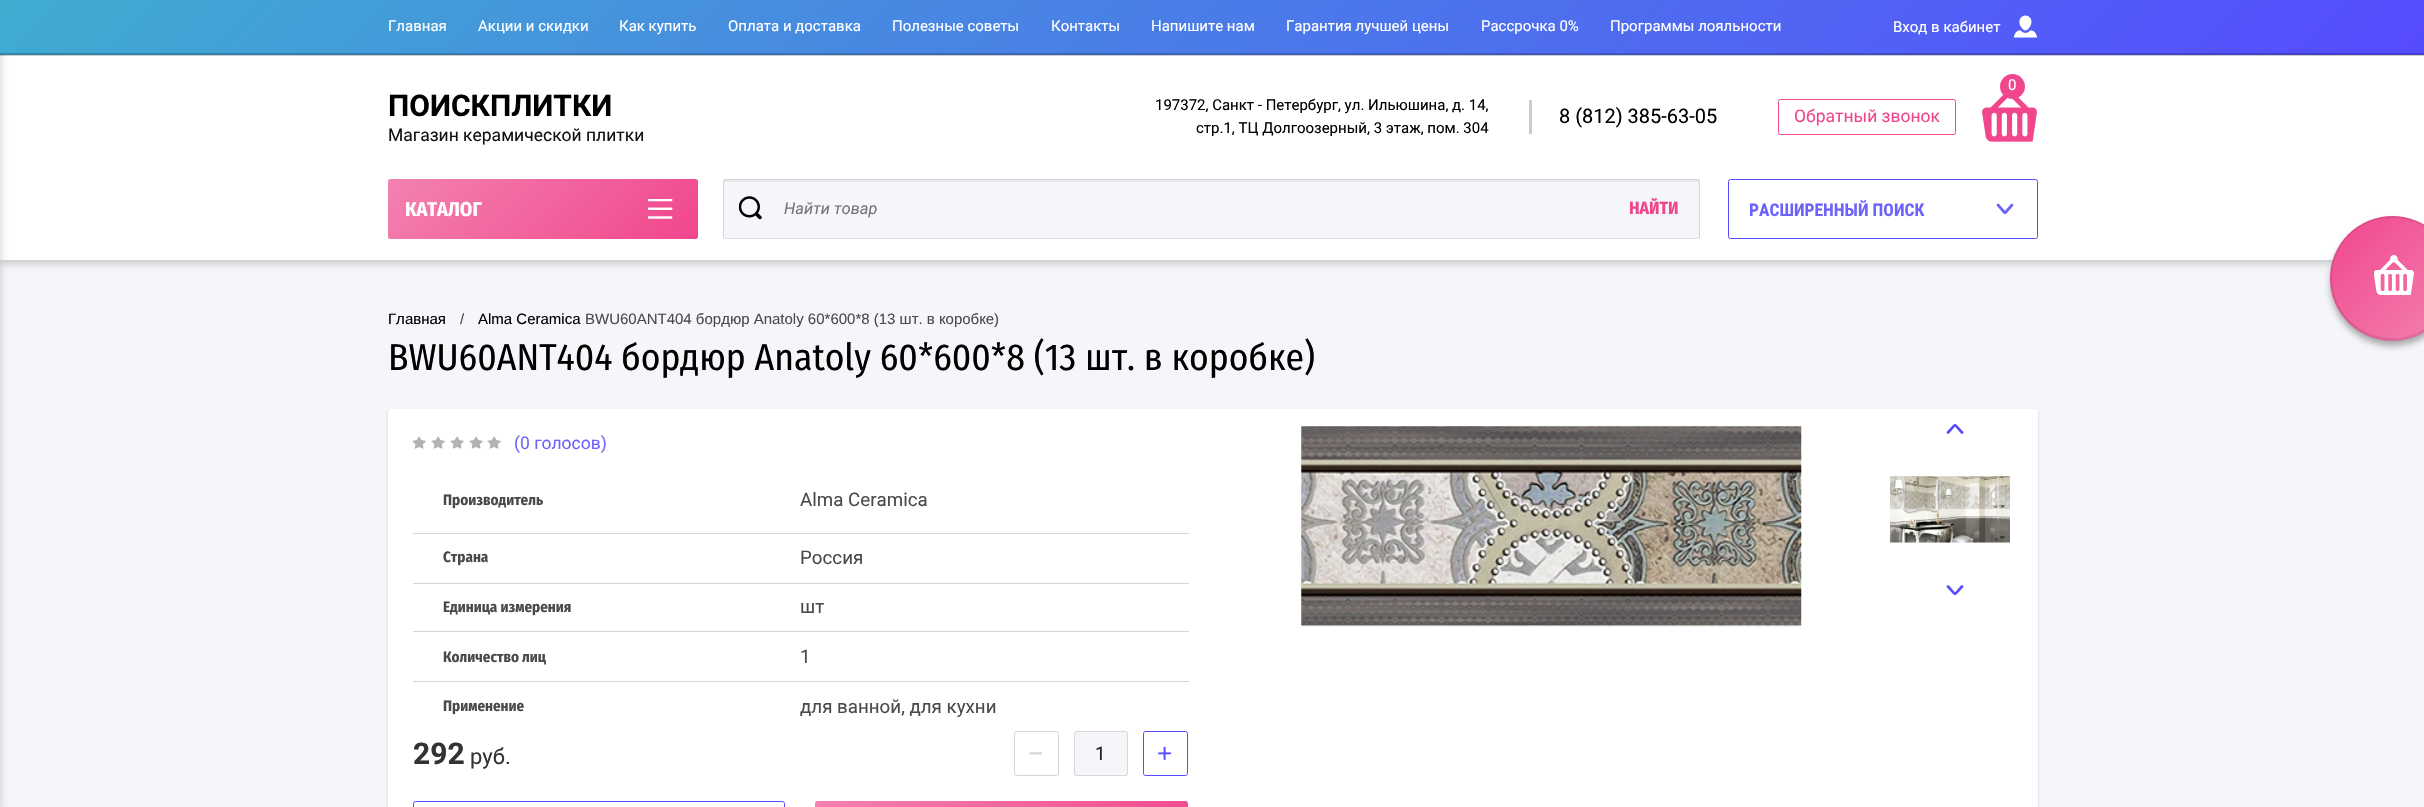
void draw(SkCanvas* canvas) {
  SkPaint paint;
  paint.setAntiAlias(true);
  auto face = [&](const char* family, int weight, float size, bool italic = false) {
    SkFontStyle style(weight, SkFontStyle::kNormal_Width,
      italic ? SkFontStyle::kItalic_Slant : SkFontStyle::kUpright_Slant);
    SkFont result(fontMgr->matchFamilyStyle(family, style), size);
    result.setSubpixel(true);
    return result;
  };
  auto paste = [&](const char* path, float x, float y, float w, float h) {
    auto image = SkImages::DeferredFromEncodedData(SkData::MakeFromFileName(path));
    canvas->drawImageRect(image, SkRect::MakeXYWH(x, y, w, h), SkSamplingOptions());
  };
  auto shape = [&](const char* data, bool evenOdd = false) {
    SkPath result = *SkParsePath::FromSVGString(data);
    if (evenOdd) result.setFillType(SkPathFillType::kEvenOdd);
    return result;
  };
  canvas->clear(0xfff4f6f9);
  paint.setColor(0x33000000);
  paint.setMaskFilter(SkMaskFilter::MakeBlur(kNormal_SkBlurStyle, 4));
  canvas->drawRect(SkRect::MakeXYWH(0, 3, 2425, 260), paint);
  paint.setMaskFilter(nullptr);
  paint.setColor(0xffffffff);
  canvas->drawRect(SkRect::MakeXYWH(0, 55, 2424, 205), paint);
  paint.setColor(0x33000000);
  paint.setMaskFilter(SkMaskFilter::MakeBlur(kNormal_SkBlurStyle, 4));
  canvas->drawRect(SkRect::MakeXYWH(-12, 3, 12, 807), paint);
  paint.setMaskFilter(nullptr);
  {
    const SkColor colors[] = {0xff3facd1, 0xff564bff};
    const float stops[] = {0, 1};
    const SkPoint ends[] = {{592, -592}, {1833, 648}};
    paint.setShader(SkGradientShader::MakeLinear(ends, colors, stops, 2, SkTileMode::kClamp));
    paint.setAlpha(255);
  }
  canvas->drawRect(SkRect::MakeXYWH(0, 0, 2424, 55), paint);
  paint.setShader(nullptr);
  paint.setColor(0x33000000);
  canvas->drawRect(SkRect::MakeXYWH(0, 53, 2424, 3), paint);
  paste("img/1.png", 2014, 15, 24, 23);
  paste("img/2.png", 1982, 94, 55, 48);
  paint.setColor(0xfff1468d);
  canvas->drawCircle(2012.5f, 86.5f, 12.5f, paint);
  paint.setColor(0xffcccccc);
  canvas->drawRect(SkRect::MakeXYWH(1529, 100, 3, 34), paint);
  paint.setStroke(true);
  paint.setStrokeWidth(1);
  paint.setColor(0xfff1468d);
  canvas->drawRoundRect(SkRect::MakeXYWH(1778.5f, 99.5f, 177, 35), 2, 2, paint);
  paint.setStroke(false);
  {
    const SkColor colors[] = {0xfff382b1, 0xfff1468d};
    const float stops[] = {0, 1};
    const SkPoint ends[] = {{450, 116}, {635, 301}};
    paint.setShader(SkGradientShader::MakeLinear(ends, colors, stops, 2, SkTileMode::kClamp));
    paint.setAlpha(255);
  }
  canvas->drawRoundRect(SkRect::MakeXYWH(388, 179, 310, 60), 2.5f, 2.5f, paint);
  paste("img/3.png", 648, 199, 25, 20);
  paint.setShader(nullptr);
  paint.setColor(0xfff4f6f9);
  canvas->drawRoundRect(SkRect::MakeXYWH(723, 179, 977, 60), 2.5f, 2.5f, paint);
  paint.setStroke(true);
  paint.setColor(0x1a202020);
  canvas->drawRoundRect(SkRect::MakeXYWH(723.5f, 179.5f, 976, 59), 2, 2, paint);
  paint.setStroke(false);
  paint.setColor(0x0d000000);
  canvas->drawPath(shape("M725 182H1698L1699 184V239C1700 238 1700 237 1700 236V182C1700 180 1699 179 1698 179H726C724 179 723 180 723 182V236C723 237 723 238 724 239V184C724 183 724 182 725 182Z"), paint);
  paste("img/4.png", 739, 196, 23, 24);
  paint.setStroke(true);
  paint.setColor(0xff564bff);
  canvas->drawRoundRect(SkRect::MakeXYWH(1728.5f, 179.5f, 309, 59), 2, 2, paint);
  paint.setStroke(false);
  paint.setColor(0xff6d63fc);
  canvas->drawPath(shape("M2013 206L2006.5 213.5C2006 214 2005 214 2004.5 213.5C2004 213 2004 212 2004.5 211.5L2011 204C2011.5 203.5 2012.5 203.5 2013 204C2013.5 204.5 2013.5 205.5 2013 206Z"), paint);
  canvas->drawPath(shape("M1999 204L2005.5 211.5C2006 212 2006 213 2005.5 213.5C2005 214 2004 214 2003.5 213.5L1997 206C1996.5 205.5 1996.5 204.5 1997 204C1997.5 203.5 1998.5 203.5 1999 204Z"), paint);
  paint.setColor(0x33000000);
  paint.setMaskFilter(SkMaskFilter::MakeBlur(kNormal_SkBlurStyle, 1));
  canvas->drawRoundRect(SkRect::MakeXYWH(388, 410, 1650, 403), 2.5f, 2.5f, paint);
  paint.setMaskFilter(nullptr);
  paint.setColor(0xffffffff);
  canvas->drawRoundRect(SkRect::MakeXYWH(388, 409, 1650, 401), 2.5f, 2.5f, paint);
  paste("img/5.png", 412, 436, 89, 13);
  {
    const struct { float x, y, w, h; SkColor color; } items[] = {
      {413, 533, 776, 1, 0xffd5d5d5},
      {413, 583, 776, 1, 0xffd5d5d5},
      {413, 631, 776, 1, 0xffd5d5d5},
      {413, 681, 776, 1, 0xffd5d5d5},
    };
    for (auto [x, y, w, h, color] : items) {
      paint.setColor(color);
      canvas->drawRect(SkRect::MakeXYWH(x, y, w, h), paint);
    }
  }
  paint.setStroke(true);
  canvas->drawRoundRect(SkRect::MakeXYWH(1014.5f, 731.5f, 44, 44), 2, 2, paint);
  paint.setStroke(false);
  paint.setColor(0xfff4f6f9);
  canvas->drawRoundRect(SkRect::MakeXYWH(1074, 731, 54, 45), 2.5f, 2.5f, paint);
  paint.setStroke(true);
  paint.setColor(0x1f000000);
  canvas->drawRoundRect(SkRect::MakeXYWH(1074.5f, 731.5f, 53, 44), 2, 2, paint);
  paint.setColor(0xff564bff);
  canvas->drawRoundRect(SkRect::MakeXYWH(1143.5f, 731.5f, 44, 44), 2, 2, paint);
  canvas->drawRoundRect(SkRect::MakeXYWH(413.5f, 801.5f, 371, 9), 2, 2, paint);
  paint.setStroke(false);
  {
    const SkColor colors[] = {0xfff382b1, 0xfff1468d};
    const float stops[] = {0, 1};
    const SkPoint ends[] = {{893, 723}, {1109, 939}};
    paint.setShader(SkGradientShader::MakeLinear(ends, colors, stops, 2, SkTileMode::kClamp));
    paint.setAlpha(255);
  }
  canvas->drawRoundRect(SkRect::MakeXYWH(815, 801, 373, 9), 2.5f, 2.5f, paint);
  paste("img/6.png", 1301, 426, 501, 201);
  paint.setShader(nullptr);
  paint.setColor(0xff564bff);
  canvas->drawPath(shape("M1947 431.5L1953.5 424.5C1954 424 1955 424 1955.5 424.5C1956 425 1956 425.5 1955.5 426L1949 433.5C1948.5 434 1947.5 434 1947 433.5C1946.5 433 1946.5 432 1947 431.5Z"), paint);
  canvas->drawPath(shape("M1961 433.5L1954.5 426C1954 425.5 1954 425 1954.5 424.5C1955 424 1956 424 1956.5 424.5L1963 431.5C1963.5 432 1963.5 433 1963 433.5C1962.5 434 1961.5 434 1961 433.5Z"), paint);
  canvas->drawPath(shape("M1963 587.5L1956.5 594.5C1956 595 1955 595 1954.5 594.5C1954 594 1954 593.5 1954.5 593L1961 585.5C1961.5 585 1962.5 585 1963 585.5C1963.5 586 1963.5 587 1963 587.5Z"), paint);
  canvas->drawPath(shape("M1949 585.5L1955.5 593C1956 593.5 1956 594 1955.5 594.5C1955 595 1954 595 1953.5 594.5L1947 587.5C1946.5 587 1946.5 586 1947 585.5C1947.5 585 1948.5 585 1949 585.5Z"), paint);
  paste("img/7.png", 1890, 476, 120, 67);
  paint.setColor(0x4d000000);
  paint.setMaskFilter(SkMaskFilter::MakeBlur(kNormal_SkBlurStyle, 3));
  canvas->drawRoundRect(SkRect::MakeXYWH(2330, 221, 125, 125), 62.5f, 62.5f, paint);
  paint.setMaskFilter(nullptr);
  {
    const SkColor colors[] = {0xfff382b1, 0xfff1468d};
    const float stops[] = {0, 1};
    const SkPoint ends[] = {{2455, 341}, {2330, 216}};
    paint.setShader(SkGradientShader::MakeLinear(ends, colors, stops, 2, SkTileMode::kClamp));
    paint.setAlpha(255);
  }
  canvas->drawCircle(2392.5f, 278.5f, 62.5f, paint);
  paint.setShader(nullptr);
  paint.setColor(0x17000000);
  canvas->drawPath(shape("M2392 216C2358 216 2330 244 2330 278C2330 313 2358 341 2392 341C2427 341 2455 313 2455 278C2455 244 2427 216 2392 216ZM2392 218C2359 218 2332 244 2332 278C2332 311 2359 338 2392 338C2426 338 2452 311 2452 278C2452 244 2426 218 2392 218Z", true), paint);
  paste("img/8.png", 2374, 255, 40, 40);
  auto f0 = face("Roboto", 400, 15);
  paint.setColor(0xffffffff);
  {
    const struct { const char* s; float x, y; } items[] = {
      {"Главная", 388, 31},
      {"Акции и скидки", 478, 31},
      {"Как купить", 619, 31},
      {"Оплата и доставка", 728, 31},
      {"Полезные советы", 892, 31},
      {"Контакты", 1051, 31},
      {"Напишите нам", 1151, 31},
      {"Гарантия лучшей цены", 1286, 31},
      {"Рассрочка 0%", 1481, 31},
      {"Программы лояльности", 1610, 31},
      {"Вход в кабинет", 1893, 32},
    };
    for (auto [s, x, y] : items) {
      canvas->drawString(s, x, y, f0, paint);
    }
  }
  auto f1 = face("Roboto", 700, 30);
  paint.setColor(0xff000000);
  canvas->drawString("ПОИСКПЛИТКИ", 388, 116, f1, paint);
  auto f2 = face("Roboto", 400, 17.5f);
  paint.setColor(0xff121212);
  canvas->drawString("Магазин керамической плитки", 388, 141, f2, paint);
  paint.setColor(0xffffffff);
  canvas->drawString("0", 2008, 90, f0, paint);
  paint.setColor(0xff000000);
  canvas->drawString("197372, Санкт - Петербург, ул. Ильюшина, д. 14,", 1155, 110, f0, paint);
  canvas->drawString("стр.1, ТЦ Долгоозерный, 3 этаж, пом. 304", 1196, 133, f0, paint);
  auto f3 = face("Roboto", 400, 20);
  canvas->drawString("8 (812) 385-63-05", 1559, 123, f3, paint);
  paint.setColor(0xfff1468d);
  canvas->drawString("Обратный звонок", 1794, 122, f2, paint);
  auto f4 = face("Fira Sans Condensed", 700, 20);
  paint.setColor(0xffffffff);
  canvas->drawString("КАТАЛОГ", 405, 216, f4, paint);
  auto f5 = face("Roboto", 400, 16.25f, true);
  paint.setColor(0xff757575);
  canvas->drawString("Найти товар", 784, 214, f5, paint);
  auto f6 = face("Fira Sans Condensed", 700, 17.5f);
  paint.setColor(0xfff1468d);
  canvas->drawString("НАЙТИ", 1629, 214, f6, paint);
  auto f7 = face("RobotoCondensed", 700, 17.5f);
  paint.setColor(0xff6d63fc);
  canvas->drawString("РАСШИРЕННЫЙ ПОИСК", 1749, 216, f7, paint);
  auto f8 = face("Liberation Sans", 400, 15);
  paint.setColor(0xff000000);
  canvas->drawString("Главная", 388, 324, f8, paint);
  paint.setColor(0xff4a4a4a);
  canvas->drawString("/", 460, 324, f8, paint);
  paint.setColor(0xff000000);
  canvas->drawString("Alma Ceramica", 478, 324, f8, paint);
  paint.setColor(0xff4a4a4a);
  canvas->drawString("BWU60ANT404 бордюр Anatoly 60*600*8 (13 шт. в коробке)", 585, 324, f8, paint);
  auto f9 = face("Fira Sans Condensed", 400, 37.5f);
  paint.setColor(0xff000000);
  canvas->drawString("BWU60ANT404 бордюр Anatoly 60*600*8 (13 шт. в коробке)", 388, 370, f9, paint);
  paint.setColor(0xff6d63fc);
  canvas->drawString("(0 голосов)", 514, 449, f2, paint);
  auto f10 = face("Fira Sans Condensed", 700, 15);
  paint.setColor(0xff4a4a4a);
  canvas->drawString("Производитель", 443, 505, f10, paint);
  auto f11 = face("Roboto", 400, 18.75f);
  canvas->drawString("Alma Ceramica", 800, 506, f11, paint);
  canvas->drawString("Страна", 443, 562, f10, paint);
  canvas->drawString("Россия", 800, 564, f11, paint);
  canvas->drawString("Единица измерения", 443, 612, f10, paint);
  canvas->drawString("шт", 800, 613, f11, paint);
  canvas->drawString("Количество лиц", 443, 662, f10, paint);
  canvas->drawString("1", 800, 663, f11, paint);
  canvas->drawString("Применение", 443, 711, f10, paint);
  canvas->drawString("для ванной, для кухни", 800, 713, f11, paint);
  paint.setColor(0xff333333);
  canvas->drawString("292", 413, 764, f1, paint);
  auto f12 = face("Roboto", 400, 22);
  canvas->drawString("руб.", 470, 764, f12, paint);
  auto f13 = face("Liberation Sans", 400, 26);
  paint.setColor(0xffd5d5d5);
  canvas->drawString("−", 1028, 762, f13, paint);
  paint.setColor(0xff212121);
  canvas->drawString("1", 1095, 760, f11, paint);
  paint.setColor(0xff564bff);
  canvas->drawString("+", 1157, 762, f13, paint);
}
